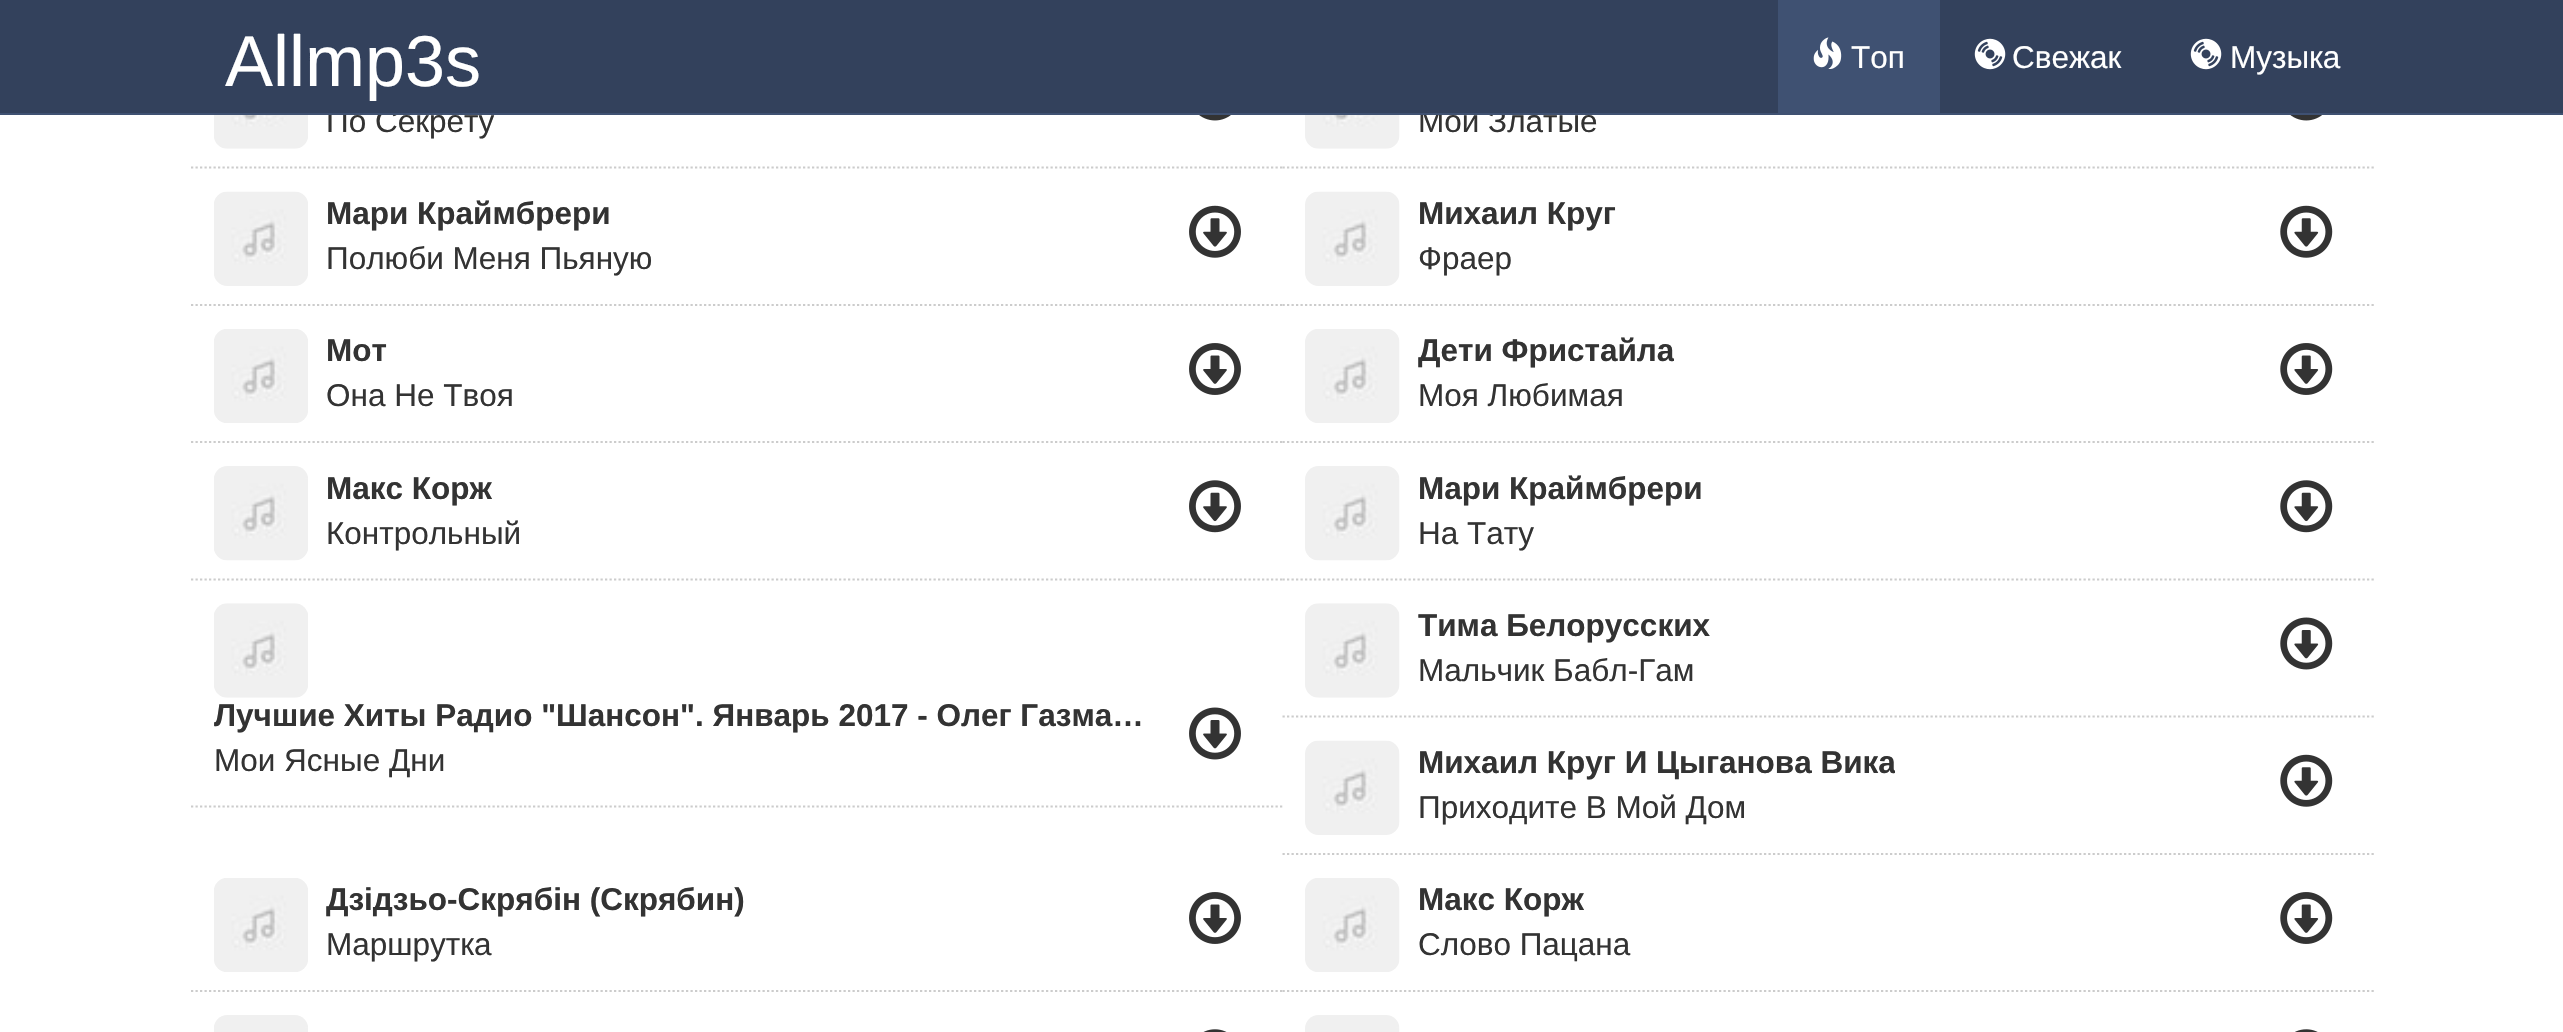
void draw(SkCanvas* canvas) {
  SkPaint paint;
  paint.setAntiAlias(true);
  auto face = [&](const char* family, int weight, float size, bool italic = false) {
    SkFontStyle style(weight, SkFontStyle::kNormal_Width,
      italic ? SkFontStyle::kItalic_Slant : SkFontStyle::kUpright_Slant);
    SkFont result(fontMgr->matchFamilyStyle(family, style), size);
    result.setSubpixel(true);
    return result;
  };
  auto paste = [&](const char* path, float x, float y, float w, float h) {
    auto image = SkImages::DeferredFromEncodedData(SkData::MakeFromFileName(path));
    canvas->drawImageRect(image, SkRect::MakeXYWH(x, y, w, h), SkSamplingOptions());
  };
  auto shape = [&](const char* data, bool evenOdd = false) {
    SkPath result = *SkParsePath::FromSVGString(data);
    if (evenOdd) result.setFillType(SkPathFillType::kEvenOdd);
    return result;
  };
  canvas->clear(0xffffffff);
  paint.setStroke(true);
  paint.setStrokeWidth(2.2f);
  paint.setColor(0xffcccccc);
  paint.setPathEffect(SkDashPathEffect::Make({{2.25f, 2.25f}}, 0));
  canvas->drawPath(shape("M191 167.5H1282.5"), paint);
  paint.setPathEffect(nullptr);
  paste("img/3.png", 214, 115, 94, 34);
  paste("img/4.png", 1199, 115, 32, 6);
  paint.setPathEffect(SkDashPathEffect::Make({{2.25f, 2.25f}}, 0));
  canvas->drawPath(shape("M1282.5 167.5H2374"), paint);
  paint.setPathEffect(nullptr);
  paste("img/5.png", 1305, 115, 95, 34);
  paste("img/6.png", 2290, 115, 32, 6);
  paint.setPathEffect(SkDashPathEffect::Make({{2.25f, 2.25f}}, 0));
  canvas->drawPath(shape("M191 305H1282.5"), paint);
  paint.setPathEffect(nullptr);
  paste("img/7.png", 214, 191, 94, 95);
  paste("img/8.png", 1189, 205, 52, 53);
  paint.setPathEffect(SkDashPathEffect::Make({{2.25f, 2.25f}}, 0));
  canvas->drawPath(shape("M1282.5 305H2374"), paint);
  paint.setPathEffect(nullptr);
  paste("img/9.png", 1305, 191, 95, 95);
  paste("img/10.png", 2280, 205, 53, 53);
  paint.setPathEffect(SkDashPathEffect::Make({{2.25f, 2.25f}}, 0));
  canvas->drawPath(shape("M191 442H1282.5"), paint);
  paint.setPathEffect(nullptr);
  paste("img/11.png", 214, 329, 94, 94);
  paste("img/12.png", 1189, 343, 52, 52);
  paint.setPathEffect(SkDashPathEffect::Make({{2.25f, 2.25f}}, 0));
  canvas->drawPath(shape("M1282.5 442H2374"), paint);
  paint.setPathEffect(nullptr);
  paste("img/13.png", 1305, 329, 95, 94);
  paste("img/14.png", 2280, 343, 53, 52);
  paint.setPathEffect(SkDashPathEffect::Make({{2.25f, 2.25f}}, 0));
  canvas->drawPath(shape("M191 579.5H1282.5"), paint);
  paint.setPathEffect(nullptr);
  paste("img/15.png", 214, 466, 94, 95);
  paste("img/16.png", 1189, 480, 52, 53);
  paint.setPathEffect(SkDashPathEffect::Make({{2.25f, 2.25f}}, 0));
  canvas->drawPath(shape("M1282.5 579.5H2374"), paint);
  paint.setPathEffect(nullptr);
  paste("img/17.png", 1305, 466, 95, 95);
  paste("img/18.png", 2280, 480, 53, 53);
  paint.setPathEffect(SkDashPathEffect::Make({{2.25f, 2.25f}}, 0));
  canvas->drawPath(shape("M1282.5 716.5H2374"), paint);
  paint.setPathEffect(nullptr);
  paste("img/19.png", 1305, 603, 95, 95);
  paste("img/20.png", 2280, 617, 53, 53);
  paint.setPathEffect(SkDashPathEffect::Make({{2.25f, 2.25f}}, 0));
  canvas->drawPath(shape("M191 806.5H1282.5"), paint);
  paint.setPathEffect(nullptr);
  paste("img/21.png", 214, 603, 94, 95);
  paste("img/22.png", 1189, 707, 52, 53);
  paint.setPathEffect(SkDashPathEffect::Make({{2.25f, 2.25f}}, 0));
  canvas->drawPath(shape("M1282.5 854H2374"), paint);
  paint.setPathEffect(nullptr);
  paste("img/23.png", 1305, 740, 95, 95);
  paste("img/10.png", 2280, 754, 53, 53);
  paint.setPathEffect(SkDashPathEffect::Make({{2.25f, 2.25f}}, 0));
  canvas->drawPath(shape("M191 991H1282.5"), paint);
  paint.setPathEffect(nullptr);
  paste("img/11.png", 214, 878, 94, 94);
  paste("img/12.png", 1189, 892, 52, 52);
  paint.setPathEffect(SkDashPathEffect::Make({{2.25f, 2.25f}}, 0));
  canvas->drawPath(shape("M1282.5 991H2374"), paint);
  paint.setPathEffect(nullptr);
  paste("img/13.png", 1305, 878, 95, 94);
  paste("img/14.png", 2280, 892, 53, 52);
  paste("img/24.png", 214, 1015, 94, 17);
  paste("img/25.png", 1203, 1029, 24, 3);
  paste("img/26.png", 1305, 1015, 95, 17);
  paste("img/27.png", 2295, 1029, 23, 3);
  auto f0 = face("Liberation Sans", 400, 31.5f);
  paint.setStroke(false);
  paint.setColor(0xff333333);
  canvas->drawString("По Секрету", 326, 132, f0, paint);
  canvas->drawString("Мои Златые", 1418, 132, f0, paint);
  paint.setColor(0xff33415c);
  canvas->drawRect(SkRect::MakeXYWH(0, 0, 2563, 113), paint);
  paste("img/2.png", 2190, 38, 32, 32);
  paint.setColor(0xffffffff);
  canvas->drawString("Музыка", 2230, 68, f0, paint);
  paste("img/2.png", 1974, 38, 32, 32);
  canvas->drawString("Свежак", 2012, 68, f0, paint);
  paint.setColor(0xff3f5172);
  canvas->drawRect(SkRect::MakeXYWH(1778, 0, 162, 113), paint);
  paste("img/1.png", 1813, 37, 29, 32);
  paint.setColor(0xffffffff);
  canvas->drawString("Топ", 1851, 68, f0, paint);
  auto f1 = face("Liberation Sans", 400, 72);
  canvas->drawString("Allmp3s", 225, 86, f1, paint);
  paint.setColor(0xff3f5172);
  canvas->drawRect(SkRect::MakeXYWH(0, 113, 2563, 2), paint);
  auto f2 = face("Liberation Sans", 700, 31.5f);
  paint.setColor(0xff333333);
  canvas->drawString("Мари Краймбрери", 326, 224, f2, paint);
  canvas->drawString("Полюби Меня Пьяную", 326, 269, f0, paint);
  canvas->drawString("Михаил Круг", 1418, 224, f2, paint);
  canvas->drawString("Фраер", 1418, 269, f0, paint);
  canvas->drawString("Мот", 326, 361, f2, paint);
  canvas->drawString("Она Не Твоя", 326, 406, f0, paint);
  canvas->save();
  canvas->clipRect(SkRect::MakeXYWH(1418, 329, 256, 45));
  canvas->drawString("Дети Фристайла", 1418, 361, f2, paint);
  canvas->restore();
  canvas->drawString("Моя Любимая", 1418, 406, f0, paint);
  canvas->drawString("Макс Корж", 326, 499, f2, paint);
  canvas->drawString("Контрольный", 326, 544, f0, paint);
  canvas->drawString("Мари Краймбрери", 1418, 499, f2, paint);
  canvas->drawString("На Тату", 1418, 544, f0, paint);
  canvas->save();
  canvas->clipRect(SkRect::MakeXYWH(1418, 603, 292, 45));
  canvas->drawString("Тима Белорусских", 1418, 636, f2, paint);
  canvas->restore();
  canvas->drawString("Мальчик Бабл-Гам", 1418, 681, f0, paint);
  canvas->save();
  canvas->clipRect(SkRect::MakeXYWH(214, 693, 945, 45));
  canvas->drawString("Лучшие Хиты Радио \"Шансон\". Январь 2017 - Олег Газма…", 214, 726, f2, paint);
  canvas->restore();
  canvas->drawString("Мои Ясные Дни", 214, 771, f0, paint);
  canvas->save();
  canvas->clipRect(SkRect::MakeXYWH(1418, 740, 477, 45));
  canvas->drawString("Михаил Круг И Цыганова Вика", 1418, 773, f2, paint);
  canvas->restore();
  canvas->drawString("Приходите В Мой Дом", 1418, 818, f0, paint);
  canvas->drawString("Дзідзьо-Скрябін (Скрябин)", 326, 910, f2, paint);
  canvas->drawString("Маршрутка", 326, 955, f0, paint);
  canvas->drawString("Макс Корж", 1418, 910, f2, paint);
  canvas->drawString("Слово Пацана", 1418, 955, f0, paint);
}
